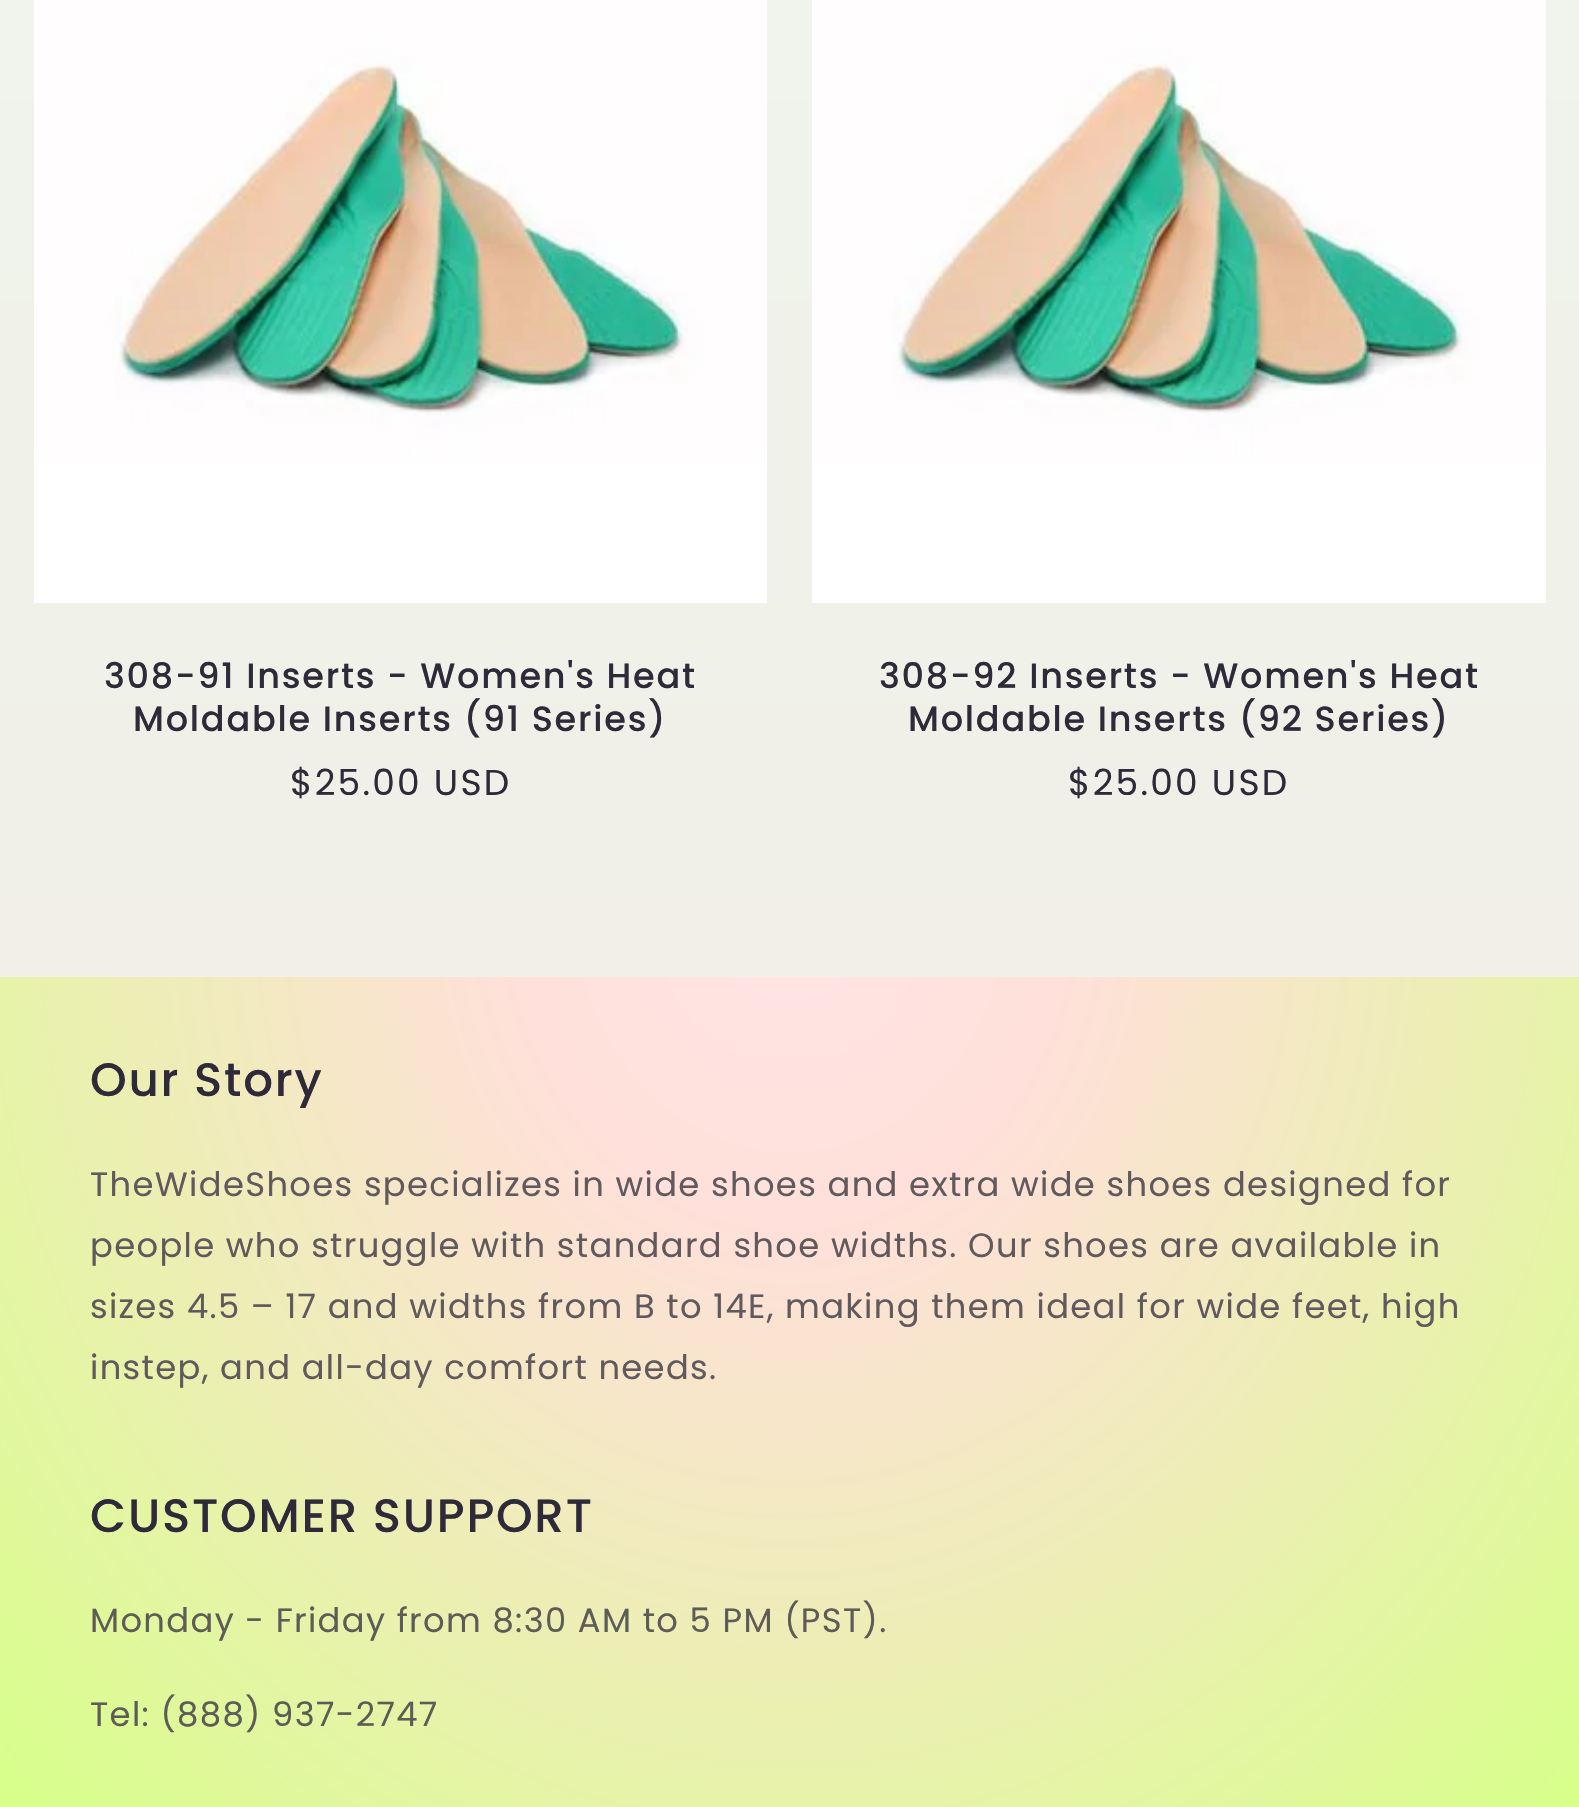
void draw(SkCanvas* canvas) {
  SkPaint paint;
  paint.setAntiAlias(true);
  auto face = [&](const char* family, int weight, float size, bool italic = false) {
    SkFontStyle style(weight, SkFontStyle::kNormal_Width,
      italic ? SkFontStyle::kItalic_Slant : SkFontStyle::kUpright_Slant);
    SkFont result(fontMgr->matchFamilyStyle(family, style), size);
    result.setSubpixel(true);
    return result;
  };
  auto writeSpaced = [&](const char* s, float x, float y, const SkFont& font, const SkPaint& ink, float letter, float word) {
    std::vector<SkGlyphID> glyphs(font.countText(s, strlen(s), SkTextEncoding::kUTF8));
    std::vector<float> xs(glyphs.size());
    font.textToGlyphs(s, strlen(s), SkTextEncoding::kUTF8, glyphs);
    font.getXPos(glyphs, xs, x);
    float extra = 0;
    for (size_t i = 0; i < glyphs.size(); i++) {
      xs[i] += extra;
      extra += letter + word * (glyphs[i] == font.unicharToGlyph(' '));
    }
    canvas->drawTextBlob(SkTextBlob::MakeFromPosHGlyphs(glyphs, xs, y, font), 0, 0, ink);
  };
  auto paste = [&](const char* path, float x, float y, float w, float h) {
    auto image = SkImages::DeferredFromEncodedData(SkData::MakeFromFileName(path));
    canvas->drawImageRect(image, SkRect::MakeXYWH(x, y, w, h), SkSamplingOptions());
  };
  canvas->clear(0xffffffff);
  {
    const SkColor colors[] = {0xfff0f4ec, 0xfff1ebe2};
    const float stops[] = {0, 1};
    const SkPoint ends[] = {{790, 0}, {790, 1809}};
    paint.setShader(SkGradientShader::MakeLinear(ends, colors, stops, 2, SkTileMode::kClamp));
    paint.setAlpha(255);
  }
  canvas->drawRect(SkRect::MakeXYWH(0, 0, 1579, 977), paint);
  paste("img/1.png", 34, 0, 733, 603);
  paste("img/2.png", 812, 0, 734, 603);
  {
    const SkColor colors[] = {0xffffe5e5, 0xffffe0da, 0xffd7ff89};
    const float stops[] = {0, 0.25f, 1};
    SkMatrix m = SkMatrix::Translate(790, 905).preScale(1117, 1279);
    paint.setShader(SkGradientShader::MakeRadial({0, 0}, 1, colors, stops, 3, SkTileMode::kClamp, 0, &m));
    paint.setAlpha(255);
  }
  canvas->drawRect(SkRect::MakeXYWH(0, 977, 1579, 830), paint);
  auto f0 = face("Poppins", 500, 35.1f);
  paint.setShader(nullptr);
  paint.setColor(0xff2e2a39);
  writeSpaced("308-91 Inserts - Women's Heat", 104, 688, f0, paint, 1.75f, 0);
  writeSpaced("Moldable Inserts (91 Series)", 133, 731, f0, paint, 1.75f, 0);
  auto f1 = face("Poppins", 400, 36);
  writeSpaced("$25.00 USD", 290, 795, f1, paint, 2.25f, 0);
  writeSpaced("308-92 Inserts - Women's Heat", 879, 688, f0, paint, 1.75f, 0);
  writeSpaced("Moldable Inserts (92 Series)", 908, 731, f0, paint, 1.75f, 0);
  writeSpaced("$25.00 USD", 1068, 795, f1, paint, 2.25f, 0);
  auto f2 = face("Poppins", 500, 46.75f);
  writeSpaced("Our Story", 90, 1096, f2, paint, 1.75f, 0);
  auto f3 = face("Poppins", 400, 33.75f);
  paint.setColor(0xff60595d);
  {
    const struct { const char* s; float x, y; } items[] = {
      {"TheWideShoes specializes in wide shoes and extra wide shoes designed for", 90, 1196},
      {"people who struggle with standard shoe widths. Our shoes are available in", 90, 1257},
      {"sizes 4.5 – 17 and widths from B to 14E, making them ideal for wide feet, high", 90, 1318},
      {"instep, and all-day comfort needs.", 90, 1379},
    };
    for (auto [s, x, y] : items) {
      writeSpaced(s, x, y, f3, paint, 1.35f, 0);
    }
  }
  paint.setColor(0xff2e2a39);
  writeSpaced("CUSTOMER SUPPORT", 90, 1532, f2, paint, 1.75f, 0);
  paint.setColor(0xff5d5c56);
  writeSpaced("Monday - Friday from 8:30 AM to 5 PM (PST).", 90, 1632, f3, paint, 1.35f, 0);
  writeSpaced("Tel: (888) 937-2747", 90, 1726, f3, paint, 1.35f, 0);
}
